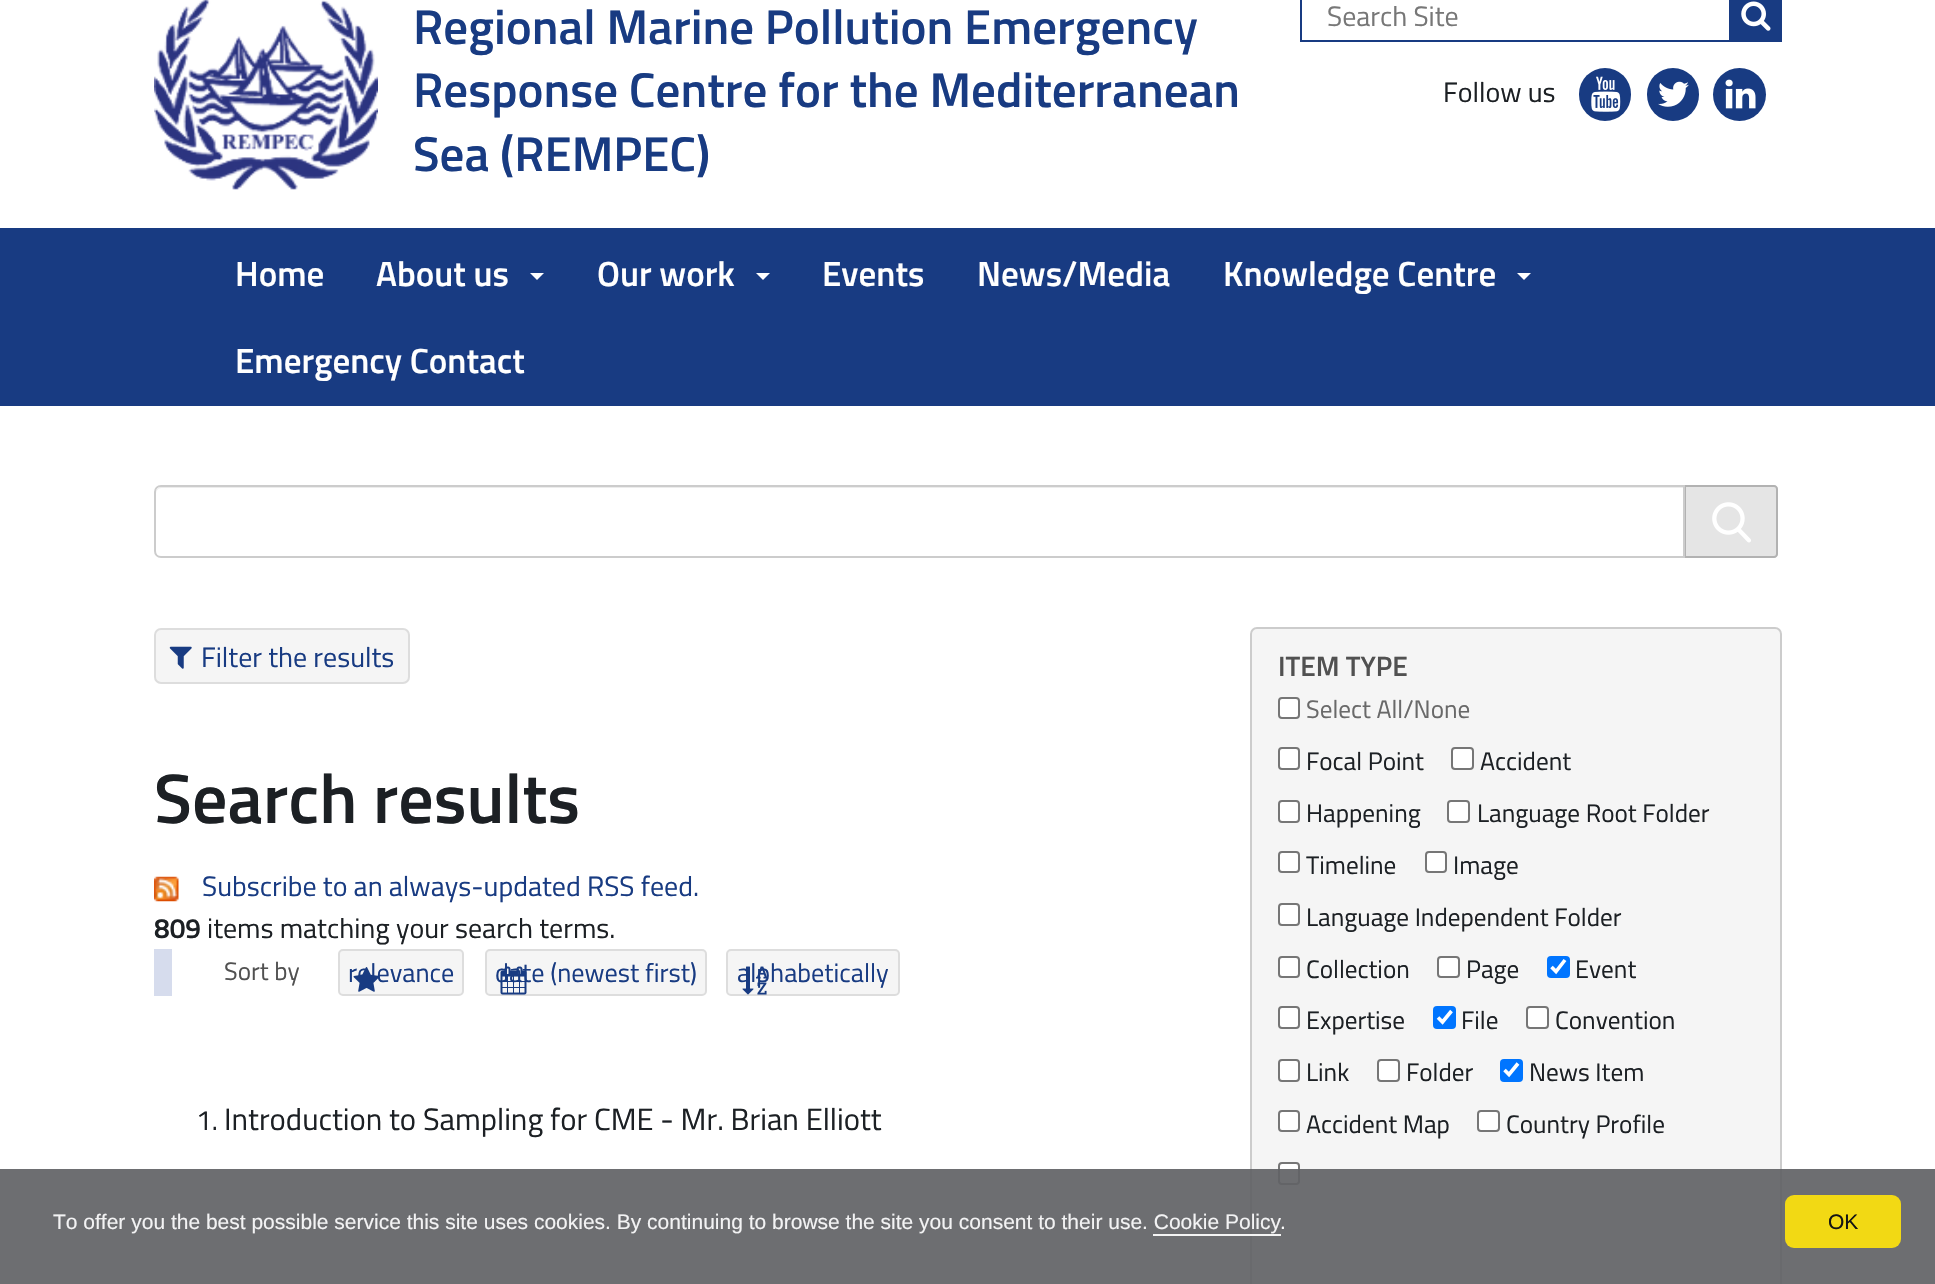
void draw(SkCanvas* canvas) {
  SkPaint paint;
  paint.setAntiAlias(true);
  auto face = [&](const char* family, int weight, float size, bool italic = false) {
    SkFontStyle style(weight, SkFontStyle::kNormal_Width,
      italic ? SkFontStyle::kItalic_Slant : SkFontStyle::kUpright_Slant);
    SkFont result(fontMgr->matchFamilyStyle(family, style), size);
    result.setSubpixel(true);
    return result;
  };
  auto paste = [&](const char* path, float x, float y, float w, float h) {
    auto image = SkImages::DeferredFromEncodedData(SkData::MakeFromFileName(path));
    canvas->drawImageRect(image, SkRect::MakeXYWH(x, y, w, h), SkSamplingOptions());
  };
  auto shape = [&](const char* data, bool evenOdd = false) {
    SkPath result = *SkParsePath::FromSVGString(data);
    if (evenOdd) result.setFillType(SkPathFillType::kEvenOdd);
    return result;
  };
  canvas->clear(0xffffffff);
  paste("img/1.png", 154, 0, 224, 190);
  paint.setStroke(true);
  paint.setStrokeWidth(2);
  paint.setColor(0xff183b82);
  canvas->drawRect(SkRect::MakeXYWH(1301, -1, 436, 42), paint);
  paint.setStroke(false);
  canvas->drawRect(SkRect::MakeXYWH(1729, 0, 53, 42), paint);
  paste("img/2.png", 1741, 1, 30, 30);
  canvas->drawRoundRect(SkRect::MakeXYWH(1579, 68, 52, 53), 26, 26, paint);
  paste("img/3.png", 1591, 76, 30, 36);
  canvas->drawRoundRect(SkRect::MakeXYWH(1647, 68, 52, 53), 26, 26, paint);
  paste("img/4.png", 1658, 81, 31, 26);
  canvas->drawCircle(1739.5f, 94.5f, 26.5f, paint);
  paste("img/5.png", 1725, 79, 31, 30);
  canvas->drawRect(SkRect::MakeXYWH(0, 228, 1935, 178), paint);
  paint.setColor(0xffffffff);
  canvas->drawPath(shape("M530 273H544L537 280Z"), paint);
  canvas->drawPath(shape("M756 273H770L763 280Z"), paint);
  canvas->drawPath(shape("M1517 273H1531L1524 280Z"), paint);
  paint.setColor(0xffe5e5e5);
  canvas->drawPath(shape("M1684 485H1774C1776 485 1778 487 1778 489V554C1778 556 1776 558 1774 558H1684Z"), paint);
  paste("img/6.png", 1712, 502, 39, 41);
  paint.setStroke(true);
  paint.setColor(0xffb2b2b2);
  canvas->drawPath(shape("M1685 486H1774C1775.5 486 1777 487.5 1777 489V554C1777 555.5 1775.5 557 1774 557H1685Z"), paint);
  paint.setStroke(false);
  paint.setColor(0xffffffff);
  canvas->drawPath(shape("M161 485H1685V558H161C157 558 154 555 154 551V492C154 488 157 485 161 485Z"), paint);
  paint.setColor(0xffececec);
  canvas->drawPath(shape("M161 488H1684V487H161C157 487 156 491 156 494C156 491 158 488 161 488Z"), paint);
  paint.setStroke(true);
  paint.setColor(0xffcccccc);
  canvas->drawPath(shape("M161 486H1684V557H161C157.5 557 155 554.5 155 551V492C155 488.5 157.5 486 161 486Z"), paint);
  paint.setStroke(false);
  paint.setColor(0xfff5f5f5);
  canvas->drawRoundRect(SkRect::MakeXYWH(155, 629, 254, 54), 6, 6, paint);
  paint.setStroke(true);
  paint.setColor(0xffdddddd);
  canvas->drawRoundRect(SkRect::MakeXYWH(155, 629, 254, 54), 6, 6, paint);
  paste("img/7.png", 169, 646, 23, 23);
  paint.setStroke(false);
  paint.setColor(0xfff5f5f5);
  canvas->drawRoundRect(SkRect::MakeXYWH(1251, 628, 530, 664), 6, 6, paint);
  paint.setStroke(true);
  paint.setColor(0xffcccccc);
  canvas->drawRoundRect(SkRect::MakeXYWH(1251, 628, 530, 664), 6, 6, paint);
  paint.setStroke(false);
  paint.setColor(0xffffffff);
  canvas->drawRoundRect(SkRect::MakeXYWH(1279, 698, 20, 20), 3, 3, paint);
  paint.setStroke(true);
  paint.setColor(0xff767676);
  canvas->drawRoundRect(SkRect::MakeXYWH(1279, 698, 20, 20), 3, 3, paint);
  paint.setStroke(false);
  paint.setColor(0xffffffff);
  canvas->drawRoundRect(SkRect::MakeXYWH(1279, 748, 20, 21), 3, 3, paint);
  paint.setStroke(true);
  paint.setColor(0xff767676);
  canvas->drawRoundRect(SkRect::MakeXYWH(1279, 748, 20, 21), 3, 3, paint);
  paint.setStroke(false);
  paint.setColor(0xffffffff);
  canvas->drawRoundRect(SkRect::MakeXYWH(1452, 748, 21, 21), 3, 3, paint);
  paint.setStroke(true);
  paint.setColor(0xff767676);
  canvas->drawRoundRect(SkRect::MakeXYWH(1452, 748, 21, 21), 3, 3, paint);
  paint.setStroke(false);
  paint.setColor(0xffffffff);
  canvas->drawRoundRect(SkRect::MakeXYWH(1279, 801, 20, 21), 3, 3, paint);
  paint.setStroke(true);
  paint.setColor(0xff767676);
  canvas->drawRoundRect(SkRect::MakeXYWH(1279, 801, 20, 21), 3, 3, paint);
  paint.setStroke(false);
  paint.setColor(0xffffffff);
  canvas->drawRoundRect(SkRect::MakeXYWH(1448, 801, 21, 21), 3, 3, paint);
  paint.setStroke(true);
  paint.setColor(0xff767676);
  canvas->drawRoundRect(SkRect::MakeXYWH(1448, 801, 21, 21), 3, 3, paint);
  paint.setStroke(false);
  paint.setColor(0xffffffff);
  canvas->drawRoundRect(SkRect::MakeXYWH(1279, 852, 20, 20), 3, 3, paint);
  paint.setStroke(true);
  paint.setColor(0xff767676);
  canvas->drawRoundRect(SkRect::MakeXYWH(1279, 852, 20, 20), 3, 3, paint);
  paint.setStroke(false);
  paint.setColor(0xffffffff);
  canvas->drawRoundRect(SkRect::MakeXYWH(1426, 852, 20, 20), 3, 3, paint);
  paint.setStroke(true);
  paint.setColor(0xff767676);
  canvas->drawRoundRect(SkRect::MakeXYWH(1426, 852, 20, 20), 3, 3, paint);
  paint.setStroke(false);
  paint.setColor(0xffffffff);
  canvas->drawRoundRect(SkRect::MakeXYWH(1279, 904, 20, 21), 3, 3, paint);
  paint.setStroke(true);
  paint.setColor(0xff767676);
  canvas->drawRoundRect(SkRect::MakeXYWH(1279, 904, 20, 21), 3, 3, paint);
  paint.setStroke(false);
  paint.setColor(0xffffffff);
  canvas->drawRoundRect(SkRect::MakeXYWH(1279, 957, 20, 20), 3, 3, paint);
  paint.setStroke(true);
  paint.setColor(0xff767676);
  canvas->drawRoundRect(SkRect::MakeXYWH(1279, 957, 20, 20), 3, 3, paint);
  paint.setStroke(false);
  paint.setColor(0xffffffff);
  canvas->drawRoundRect(SkRect::MakeXYWH(1438, 957, 21, 20), 3, 3, paint);
  paint.setStroke(true);
  paint.setColor(0xff767676);
  canvas->drawRoundRect(SkRect::MakeXYWH(1438, 957, 21, 20), 3, 3, paint);
  paint.setStroke(false);
  paint.setColor(0xff0075ff);
  canvas->drawRoundRect(SkRect::MakeXYWH(1547, 956, 23, 22), 4, 4, paint);
  paint.setStroke(true);
  paint.setStrokeWidth(3.6f);
  paint.setColor(0xffffffff);
  canvas->drawPath(shape("M1551.5 967L1556 971.5L1565 960"), paint);
  paint.setStroke(false);
  canvas->drawRoundRect(SkRect::MakeXYWH(1279, 1007, 20, 21), 3, 3, paint);
  paint.setStroke(true);
  paint.setStrokeWidth(2);
  paint.setColor(0xff767676);
  canvas->drawRoundRect(SkRect::MakeXYWH(1279, 1007, 20, 21), 3, 3, paint);
  paint.setStroke(false);
  paint.setColor(0xff0075ff);
  canvas->drawRoundRect(SkRect::MakeXYWH(1433, 1006, 23, 23), 4, 4, paint);
  paint.setStroke(true);
  paint.setStrokeWidth(3.6f);
  paint.setColor(0xffffffff);
  canvas->drawPath(shape("M1438 1017.5L1442.5 1022L1451.5 1011"), paint);
  paint.setStroke(false);
  canvas->drawRoundRect(SkRect::MakeXYWH(1527, 1007, 21, 21), 3, 3, paint);
  paint.setStroke(true);
  paint.setStrokeWidth(2);
  paint.setColor(0xff767676);
  canvas->drawRoundRect(SkRect::MakeXYWH(1527, 1007, 21, 21), 3, 3, paint);
  paint.setStroke(false);
  paint.setColor(0xffffffff);
  canvas->drawRoundRect(SkRect::MakeXYWH(1279, 1060, 20, 21), 3, 3, paint);
  paint.setStroke(true);
  paint.setColor(0xff767676);
  canvas->drawRoundRect(SkRect::MakeXYWH(1279, 1060, 20, 21), 3, 3, paint);
  paint.setStroke(false);
  paint.setColor(0xffffffff);
  canvas->drawRoundRect(SkRect::MakeXYWH(1378, 1060, 21, 21), 3, 3, paint);
  paint.setStroke(true);
  paint.setColor(0xff767676);
  canvas->drawRoundRect(SkRect::MakeXYWH(1378, 1060, 21, 21), 3, 3, paint);
  paint.setStroke(false);
  paint.setColor(0xff0075ff);
  canvas->drawRoundRect(SkRect::MakeXYWH(1500, 1059, 23, 23), 4, 4, paint);
  paint.setStroke(true);
  paint.setStrokeWidth(3.6f);
  paint.setColor(0xffffffff);
  canvas->drawPath(shape("M1504.5 1070L1509 1074.5L1518 1063.5"), paint);
  paint.setStroke(false);
  canvas->drawRoundRect(SkRect::MakeXYWH(1279, 1111, 20, 20), 3, 3, paint);
  paint.setStroke(true);
  paint.setStrokeWidth(2);
  paint.setColor(0xff767676);
  canvas->drawRoundRect(SkRect::MakeXYWH(1279, 1111, 20, 20), 3, 3, paint);
  paint.setStroke(false);
  paint.setColor(0xffffffff);
  canvas->drawRoundRect(SkRect::MakeXYWH(1478, 1111, 21, 20), 3, 3, paint);
  paint.setStroke(true);
  paint.setColor(0xff767676);
  canvas->drawRoundRect(SkRect::MakeXYWH(1478, 1111, 21, 20), 3, 3, paint);
  paint.setStroke(false);
  paint.setColor(0xffffffff);
  canvas->drawRoundRect(SkRect::MakeXYWH(1279, 1163, 20, 21), 3, 3, paint);
  paint.setStroke(true);
  paint.setColor(0xff767676);
  canvas->drawRoundRect(SkRect::MakeXYWH(1279, 1163, 20, 21), 3, 3, paint);
  paste("img/8.png", 154, 876, 25, 26);
  paint.setStroke(false);
  paint.setColor(0xffd6dced);
  canvas->drawRect(SkRect::MakeXYWH(154, 949, 18, 47), paint);
  paint.setColor(0xfff5f5f5);
  canvas->drawRoundRect(SkRect::MakeXYWH(339, 950, 124, 45), 4, 4, paint);
  paint.setStroke(true);
  paint.setColor(0xffdddddd);
  canvas->drawRoundRect(SkRect::MakeXYWH(339, 950, 124, 45), 4, 4, paint);
  paint.setStroke(false);
  paint.setColor(0xfff5f5f5);
  canvas->drawRoundRect(SkRect::MakeXYWH(486, 950, 220, 45), 4, 4, paint);
  paint.setStroke(true);
  paint.setColor(0xffdddddd);
  canvas->drawRoundRect(SkRect::MakeXYWH(486, 950, 220, 45), 4, 4, paint);
  paint.setStroke(false);
  paint.setColor(0xfff5f5f5);
  canvas->drawRoundRect(SkRect::MakeXYWH(727, 950, 172, 45), 4, 4, paint);
  paint.setStroke(true);
  paint.setColor(0xffdddddd);
  canvas->drawRoundRect(SkRect::MakeXYWH(727, 950, 172, 45), 4, 4, paint);
  paint.setStroke(false);
  paint.setColor(0xeb616265);
  canvas->drawRect(SkRect::MakeXYWH(0, 1169, 1935, 115), paint);
  paint.setColor(0xebffffff);
  canvas->drawRect(SkRect::MakeXYWH(1153, 1234, 128, 2), paint);
  paint.setColor(0xfff2d914);
  canvas->drawRoundRect(SkRect::MakeXYWH(1785, 1195, 116, 53), 9, 9, paint);
  auto f0 = face("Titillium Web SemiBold", 600, 49);
  paint.setColor(0xff183b82);
  {
    const struct { const char* s; float x, y; } items[] = {
      {"Regional Marine Pollution Emergency", 413, 44},
      {"Response Centre for the Mediterranean", 413, 107},
      {"Sea (REMPEC)", 413, 171},
    };
    for (auto [s, x, y] : items) {
      canvas->drawString(s, x, y, f0, paint);
    }
  }
  auto f1 = face("Titillium Web", 400, 28);
  paint.setColor(0xff777777);
  canvas->drawString("Search Site", 1327, 26, f1, paint);
  paint.setColor(0xff1c2024);
  canvas->drawString("Follow us", 1443, 102, f1, paint);
  auto f2 = face("Titillium Web SemiBold", 600, 35);
  paint.setColor(0xffffffff);
  {
    const struct { const char* s; float x, y; } items[] = {
      {"Home", 235, 286},
      {"About us", 376, 286},
      {"Our work", 597, 286},
      {"Events", 822, 286},
      {"News/Media", 977, 286},
      {"Knowledge Centre", 1223, 286},
      {"Emergency Contact", 235, 373},
    };
    for (auto [s, x, y] : items) {
      canvas->drawString(s, x, y, f2, paint);
    }
  }
  paint.setColor(0xff183b82);
  canvas->drawString("Filter the results", 201, 667, f1, paint);
  auto f3 = face("Titillium Web SemiBold", 600, 28);
  paint.setColor(0xff515151);
  canvas->drawString("ITEM TYPE", 1278, 676, f3, paint);
  auto f4 = face("Titillium Web", 400, 25.25f);
  paint.setColor(0xff696969);
  canvas->drawString("Select All/None", 1306, 718, f4, paint);
  paint.setColor(0xff1c2024);
  {
    const struct { const char* s; float x, y; } items[] = {
      {"Focal Point", 1306, 770},
      {"Accident", 1480, 770},
      {"Happening", 1306, 822},
      {"Language Root Folder", 1477, 822},
      {"Timeline", 1306, 874},
      {"Image", 1453, 874},
      {"Language Independent Folder", 1306, 926},
      {"Collection", 1306, 978},
      {"Page", 1466, 978},
      {"Event", 1575, 978},
      {"Expertise", 1306, 1029},
      {"File", 1461, 1029},
      {"Convention", 1555, 1029},
      {"Link", 1306, 1081},
      {"Folder", 1406, 1081},
      {"News Item", 1529, 1081},
      {"Accident Map", 1306, 1133},
      {"Country Profile", 1506, 1133},
    };
    for (auto [s, x, y] : items) {
      canvas->drawString(s, x, y, f4, paint);
    }
  }
  auto f5 = face("Titillium Web SemiBold", 600, 70);
  canvas->drawString("Search results", 154, 823, f5, paint);
  paint.setColor(0xff183b82);
  canvas->drawString("Subscribe to an always-updated RSS feed.", 202, 896, f1, paint);
  paint.setColor(0xff1c2024);
  canvas->drawString("809", 154, 938, f3, paint);
  canvas->drawString("items matching your search terms.", 207, 938, f1, paint);
  paint.setColor(0xff515151);
  canvas->drawString("Sort by", 224, 980, f4, paint);
  auto f6 = face("Titillium Web", 400, 26.25f);
  paint.setColor(0xff183b82);
  canvas->drawString("relevance", 348, 982, f6, paint);
  paste("img/9.png", 353, 967, 27, 25);
  canvas->drawString("date (newest first)", 495, 982, f6, paint);
  paste("img/10.png", 500, 966, 27, 29);
  canvas->drawString("alphabetically", 737, 982, f6, paint);
  paste("img/11.png", 742, 966, 25, 29);
  paint.setColor(0xff1c2024);
  canvas->drawString("1.", 196, 1130, f1, paint);
  auto f7 = face("Titillium Web", 400, 30.8f);
  canvas->drawString("Introduction to Sampling for CME - Mr. Brian Elliott", 224, 1130, f7, paint);
  auto f8 = face("Liberation Sans", 400, 21);
  paint.setColor(0xfff3f3f4);
  canvas->drawString("To offer you the best possible service this site uses cookies. By continuing to browse the site you consent to their use. Cookie Policy", 53, 1229, f8, paint);
  paint.setColor(0xffffffff);
  canvas->drawString(".", 1280, 1229, f8, paint);
  paint.setColor(0xff141414);
  canvas->drawString("OK", 1828, 1229, f8, paint);
}
